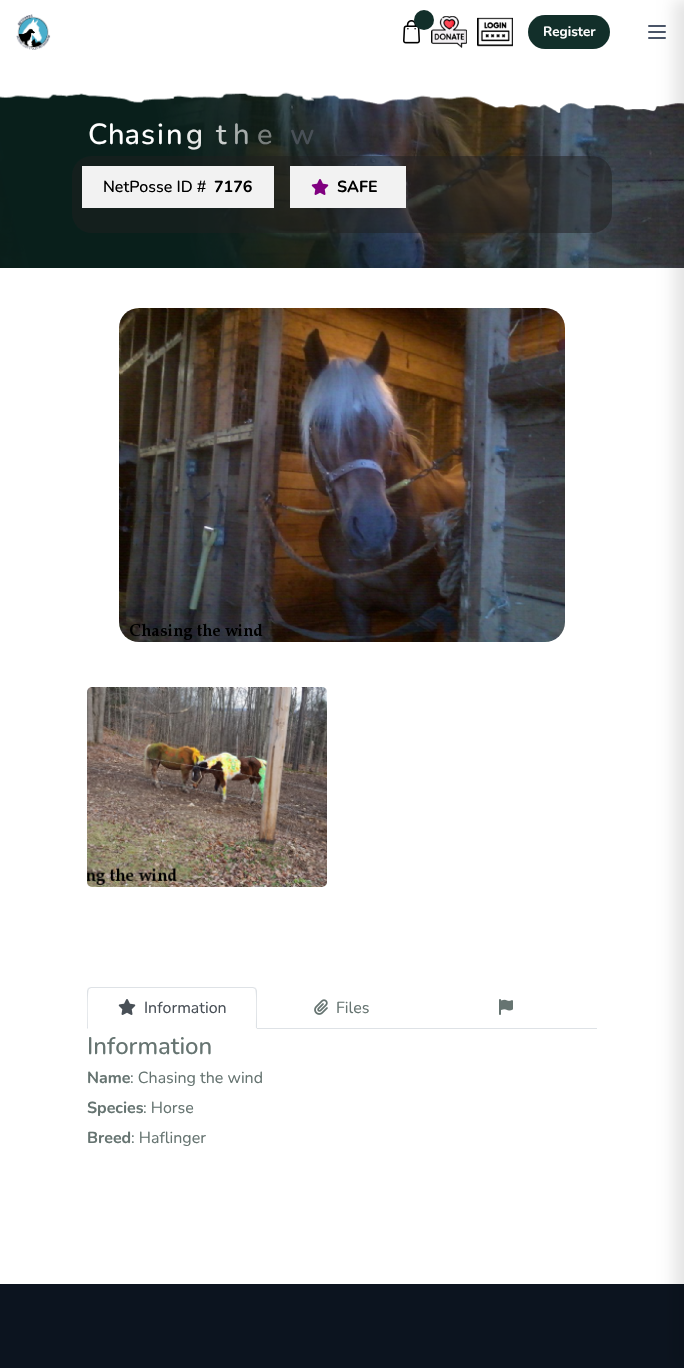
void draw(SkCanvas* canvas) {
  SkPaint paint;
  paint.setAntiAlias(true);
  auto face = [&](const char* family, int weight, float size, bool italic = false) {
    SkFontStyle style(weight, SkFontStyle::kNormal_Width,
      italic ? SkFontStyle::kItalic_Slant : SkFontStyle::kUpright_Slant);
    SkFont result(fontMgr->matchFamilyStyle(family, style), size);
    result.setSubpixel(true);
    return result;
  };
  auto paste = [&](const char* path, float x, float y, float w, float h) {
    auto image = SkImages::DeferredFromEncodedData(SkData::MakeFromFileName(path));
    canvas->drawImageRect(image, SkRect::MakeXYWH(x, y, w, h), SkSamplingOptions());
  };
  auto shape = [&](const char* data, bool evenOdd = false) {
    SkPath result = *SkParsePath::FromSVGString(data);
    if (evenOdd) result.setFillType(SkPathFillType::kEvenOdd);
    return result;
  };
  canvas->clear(0xffffffff);
  paste("img/1.png", 16, 14, 35, 36);
  paste("img/2.png", 403, 20, 17, 24);
  paste("img/3.png", 431, 16, 36, 32);
  paint.setColor(0xff122f2a);
  canvas->drawCircle(424, 20, 10, paint);
  paste("img/4.png", 477, 17, 36, 30);
  canvas->drawPath(shape("M545 15H569V49H545C535.5 49 528 41.5 528 32C528 22.5 535.5 15 545 15Z"), paint);
  canvas->drawPath(shape("M569 15H593C602.5 15 610 22.5 610 32C610 41.5 602.5 49 593 49H569Z"), paint);
  paint.setStroke(true);
  paint.setStrokeWidth(2);
  paint.setStrokeCap(SkPaint::kRound_Cap);
  paint.setStrokeJoin(SkPaint::kRound_Join);
  paint.setColor(0xff4a5568);
  canvas->drawPath(shape("M649 26H665M649 32H665M649 38H665"), paint);
  paste("img/6.png", 0, 92, 684, 176);
  paste("img/5.png", 0, 90, 684, 23);
  paint.setStroke(false);
  paint.setColor(0xff0c141f);
  canvas->drawRect(SkRect::MakeXYWH(0, 1284, 684, 84), paint);
  paint.setColor(0x1a000000);
  paint.setMaskFilter(SkMaskFilter::MakeBlur(kNormal_SkBlurStyle, 7.5f));
  canvas->drawRect(SkRect::MakeXYWH(674, 0, 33, 1368), paint);
  paint.setMaskFilter(nullptr);
  paint.setColor(0x801e1e1e);
  canvas->drawRoundRect(SkRect::MakeXYWH(72, 156, 540, 77), 20, 20, paint);
  paint.setColor(0xfff2f2f2);
  canvas->drawRect(SkRect::MakeXYWH(82, 166, 192, 42), paint);
  canvas->drawRect(SkRect::MakeXYWH(290, 166, 116, 42), paint);
  paste("img/7.png", 311, 179, 18, 16);
  paste("img/8.png", 119, 308, 446, 334);
  paste("img/9.png", 87, 687, 240, 200);
  paint.setColor(0xffdee2e6);
  canvas->drawRect(SkRect::MakeXYWH(257, 1028, 340, 1), paint);
  canvas->drawPath(shape("M91 987L88 988L89 989L91 988H253L255 989L256 988L253 987Z"), paint);
  canvas->drawPath(shape("M257 1029V991C257 990 256 989 256 988L255 989C257 991 256 1023 256 1028Z"), paint);
  paint.setColor(0xffffffff);
  canvas->drawPath(shape("M257 1029L256 1028H88L87 1029Z"), paint);
  paint.setColor(0xffdee2e6);
  canvas->drawPath(shape("M87 1029L88 1028C88 1023 87 991 89 989L88 988L87 991Z"), paint);
  paste("img/10.png", 118, 999, 18, 16);
  paste("img/11.png", 314, 999, 14, 16);
  paste("img/12.png", 499, 999, 14, 16);
  auto f0 = face("Nunito", 700, 13.5f);
  paint.setColor(0xffffffff);
  canvas->drawString("Register", 543, 36, f0, paint);
  auto f1 = face("Nunito", 500, 29);
  {
    const struct { const char* s; float x, y; } items[] = {
      {"C", 88, 144},
      {"ha", 108, 144},
      {"s", 141, 144},
      {"i", 157, 144},
      {"n", 166, 144},
    };
    for (auto [s, x, y] : items) {
      canvas->drawString(s, x, y, f1, paint);
    }
  }
  paint.setColor(0xffe6e8e7);
  canvas->drawString("g", 186, 144, f1, paint);
  paint.setColor(0xffcacecd);
  canvas->drawString("t", 216, 144, f1, paint);
  paint.setColor(0xffa6acab);
  canvas->drawString("h", 233, 144, f1, paint);
  paint.setColor(0xff787e7b);
  canvas->drawString("e", 257, 144, f1, paint);
  paint.setColor(0xff495057);
  canvas->drawString("w", 290, 144, f1, paint);
  auto f2 = face("Nunito", 500, 16);
  paint.setColor(0xff000000);
  canvas->drawString("NetPosse ID #", 103, 192, f2, paint);
  auto f3 = face("Nunito", 700, 16);
  canvas->drawString("7176", 214, 192, f3, paint);
  canvas->drawString("SAFE", 337, 192, f3, paint);
  auto f4 = face("Nunito", 400, 16);
  paint.setColor(0xff495057);
  canvas->drawString("Information", 144, 1013, f4, paint);
  paint.setColor(0xff667471);
  canvas->drawString("Files", 336, 1013, f4, paint);
  auto f5 = face("Nunito", 500, 24);
  canvas->drawString("Information", 87, 1054, f5, paint);
  canvas->drawString("Name", 87, 1083, f3, paint);
  canvas->drawString(": Chasing the wind", 130, 1083, f4, paint);
  canvas->drawString("Species", 87, 1113, f3, paint);
  canvas->drawString(": Horse", 143, 1113, f4, paint);
  canvas->drawString("Breed", 87, 1143, f3, paint);
  canvas->drawString(": Haflinger", 131, 1143, f4, paint);
}
